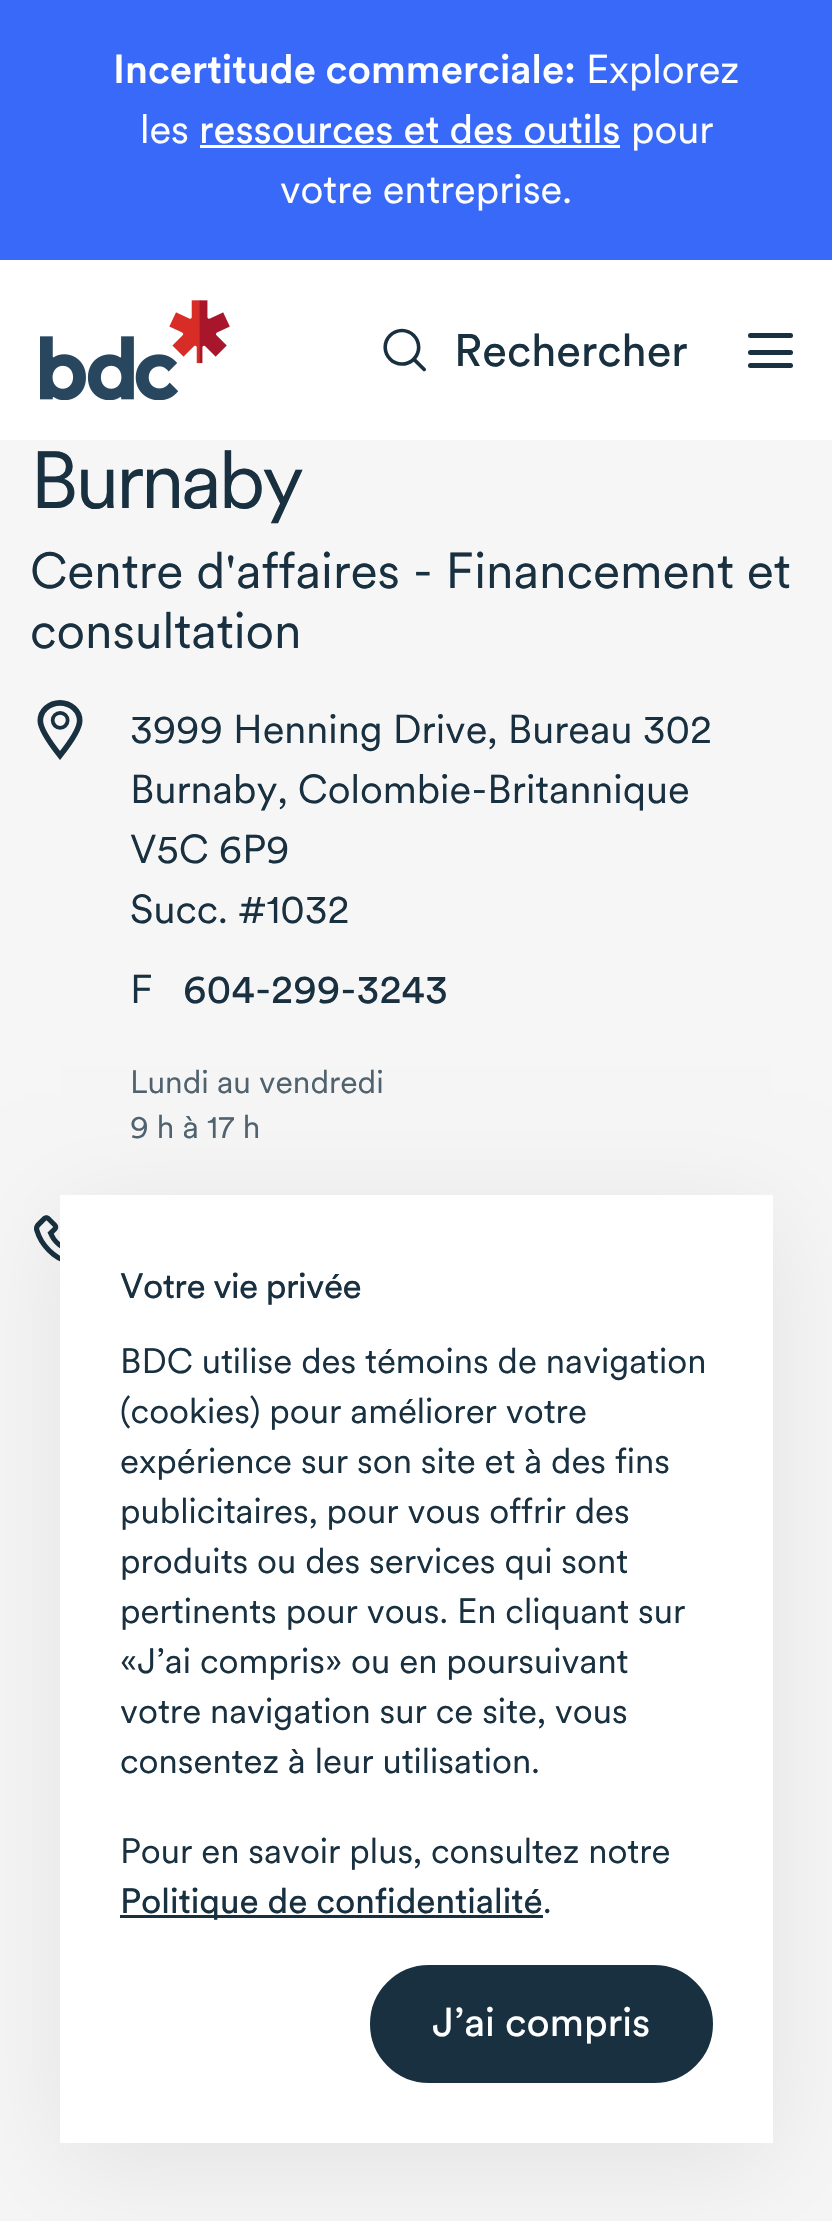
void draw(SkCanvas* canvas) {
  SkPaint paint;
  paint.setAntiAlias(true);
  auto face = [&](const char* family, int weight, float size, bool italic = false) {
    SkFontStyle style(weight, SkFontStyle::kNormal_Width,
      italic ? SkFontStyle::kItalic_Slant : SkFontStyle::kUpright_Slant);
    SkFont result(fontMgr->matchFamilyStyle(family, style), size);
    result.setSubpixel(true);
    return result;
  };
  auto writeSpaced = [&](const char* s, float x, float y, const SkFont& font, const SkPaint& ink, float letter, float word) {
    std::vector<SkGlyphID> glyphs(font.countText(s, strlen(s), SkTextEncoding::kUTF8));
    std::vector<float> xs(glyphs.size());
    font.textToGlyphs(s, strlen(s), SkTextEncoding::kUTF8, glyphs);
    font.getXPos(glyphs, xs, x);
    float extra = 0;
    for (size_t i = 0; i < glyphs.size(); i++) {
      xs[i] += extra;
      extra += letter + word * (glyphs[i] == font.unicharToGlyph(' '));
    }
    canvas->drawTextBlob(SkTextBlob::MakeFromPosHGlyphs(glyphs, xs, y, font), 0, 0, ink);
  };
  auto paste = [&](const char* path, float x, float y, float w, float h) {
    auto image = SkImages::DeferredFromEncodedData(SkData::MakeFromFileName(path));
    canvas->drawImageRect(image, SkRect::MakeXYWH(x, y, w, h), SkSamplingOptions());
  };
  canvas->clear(0xfff7f6f6);
  {
    const struct { float x, y, w, h; SkColor color; } items[] = {
      {0, 0, 832, 260, 0xff3969f8},
      {200, 145, 420, 3, 0xffffffff},
      {0, 260, 832, 180, 0xffffffff},
    };
    for (auto [x, y, w, h, color] : items) {
      paint.setColor(color);
      canvas->drawRect(SkRect::MakeXYWH(x, y, w, h), paint);
    }
  }
  paste("img/1.png", 40, 300, 190, 100);
  paste("img/2.png", 383, 328, 43, 44);
  paint.setColor(0xff18303f);
  canvas->drawRoundRect(SkRect::MakeXYWH(748, 333, 45, 5), 2.5f, 2.5f, paint);
  canvas->drawRoundRect(SkRect::MakeXYWH(748, 350, 45, 5), 2.5f, 2.5f, paint);
  canvas->drawRoundRect(SkRect::MakeXYWH(748, 363, 45, 5), 2.5f, 2.5f, paint);
  paste("img/3.png", 37, 700, 46, 60);
  paste("img/4.png", 34, 1215, 26, 47);
  paint.setColor(0x14000000);
  paint.setMaskFilter(SkMaskFilter::MakeBlur(kNormal_SkBlurStyle, 50));
  canvas->drawRect(SkRect::MakeXYWH(60, 1215, 713, 948), paint);
  paint.setMaskFilter(nullptr);
  paint.setColor(0xffffffff);
  canvas->drawRect(SkRect::MakeXYWH(60, 1195, 713, 948), paint);
  paint.setColor(0xff18303f);
  canvas->drawRect(SkRect::MakeXYWH(120, 1915, 423, 3), paint);
  canvas->drawRoundRect(SkRect::MakeXYWH(371.5f, 1966.5f, 340, 115), 57.5f, 57.5f, paint);
  paint.setStroke(true);
  paint.setStrokeWidth(3);
  canvas->drawRoundRect(SkRect::MakeXYWH(371.5f, 1966.5f, 340, 115), 57.5f, 57.5f, paint);
  auto f0 = face("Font", 500, 40);
  paint.setStroke(false);
  paint.setColor(0xffffffff);
  canvas->drawString("Incertitude commerciale:", 113, 83, f0, paint);
  auto f1 = face("Font", 400, 40);
  canvas->drawString("Explorez", 586, 83, f1, paint);
  canvas->drawString("les", 140, 143, f1, paint);
  auto f2 = face("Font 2", 400, 40);
  canvas->drawString("ressources et des outils", 199, 143, f2, paint);
  canvas->drawString("pour", 631, 143, f1, paint);
  canvas->drawString("votre entreprise.", 280, 203, f1, paint);
  auto f3 = face("Font 2", 400, 45);
  paint.setColor(0xff18303f);
  canvas->drawString("Rechercher", 454, 366, f3, paint);
  auto f4 = face("Font", 400, 80);
  writeSpaced("Burnaby", 30, 508, f4, paint, -3.5f, 0);
  auto f5 = face("Font", 400, 50);
  canvas->drawString("Centre d'affaires - Financement et", 30, 588, f5, paint);
  canvas->drawString("consultation", 30, 648, f5, paint);
  {
    const struct { const char* s; float x, y; } items[] = {
      {"3999 Henning Drive, Bureau 302", 130, 743},
      {"Burnaby, Colombie-Britannique", 130, 803},
      {"V5C 6P9", 130, 863},
      {"Succ. #1032", 130, 923},
      {"F", 130, 1003},
    };
    for (auto [s, x, y] : items) {
      canvas->drawString(s, x, y, f1, paint);
    }
  }
  canvas->drawString("604-299-3243", 183, 1003, f2, paint);
  auto f6 = face("Font", 400, 32);
  paint.setColor(0xff4f626d);
  canvas->drawString("Lundi au vendredi", 130, 1093, f6, paint);
  canvas->drawString("9 h à 17 h", 130, 1138, f6, paint);
  auto f7 = face("Font 2", 400, 35);
  paint.setColor(0xff18303f);
  writeSpaced("Votre vie privée", 120, 1298, f7, paint, -0.6f, 0);
  auto f8 = face("Font", 400, 35);
  {
    const struct { const char* s; float x, y; } items[] = {
      {"BDC utilise des témoins de navigation", 120, 1373},
      {"(cookies) pour améliorer votre", 120, 1423},
      {"expérience sur son site et à des fins", 120, 1473},
      {"publicitaires, pour vous offrir des", 120, 1523},
      {"produits ou des services qui sont", 120, 1573},
      {"pertinents pour vous. En cliquant sur", 120, 1623},
      {"«J’ai compris» ou en poursuivant", 120, 1673},
      {"votre navigation sur ce site, vous", 120, 1723},
      {"consentez à leur utilisation.", 120, 1773},
      {"Pour en savoir plus, consultez notre", 120, 1863},
    };
    for (auto [s, x, y] : items) {
      canvas->drawString(s, x, y, f8, paint);
    }
  }
  canvas->drawString("Politique de confidentialité", 120, 1913, f7, paint);
  canvas->drawString(".", 543, 1913, f8, paint);
  paint.setColor(0xffffffff);
  canvas->drawString("J’ai compris", 432, 2036, f2, paint);
}
